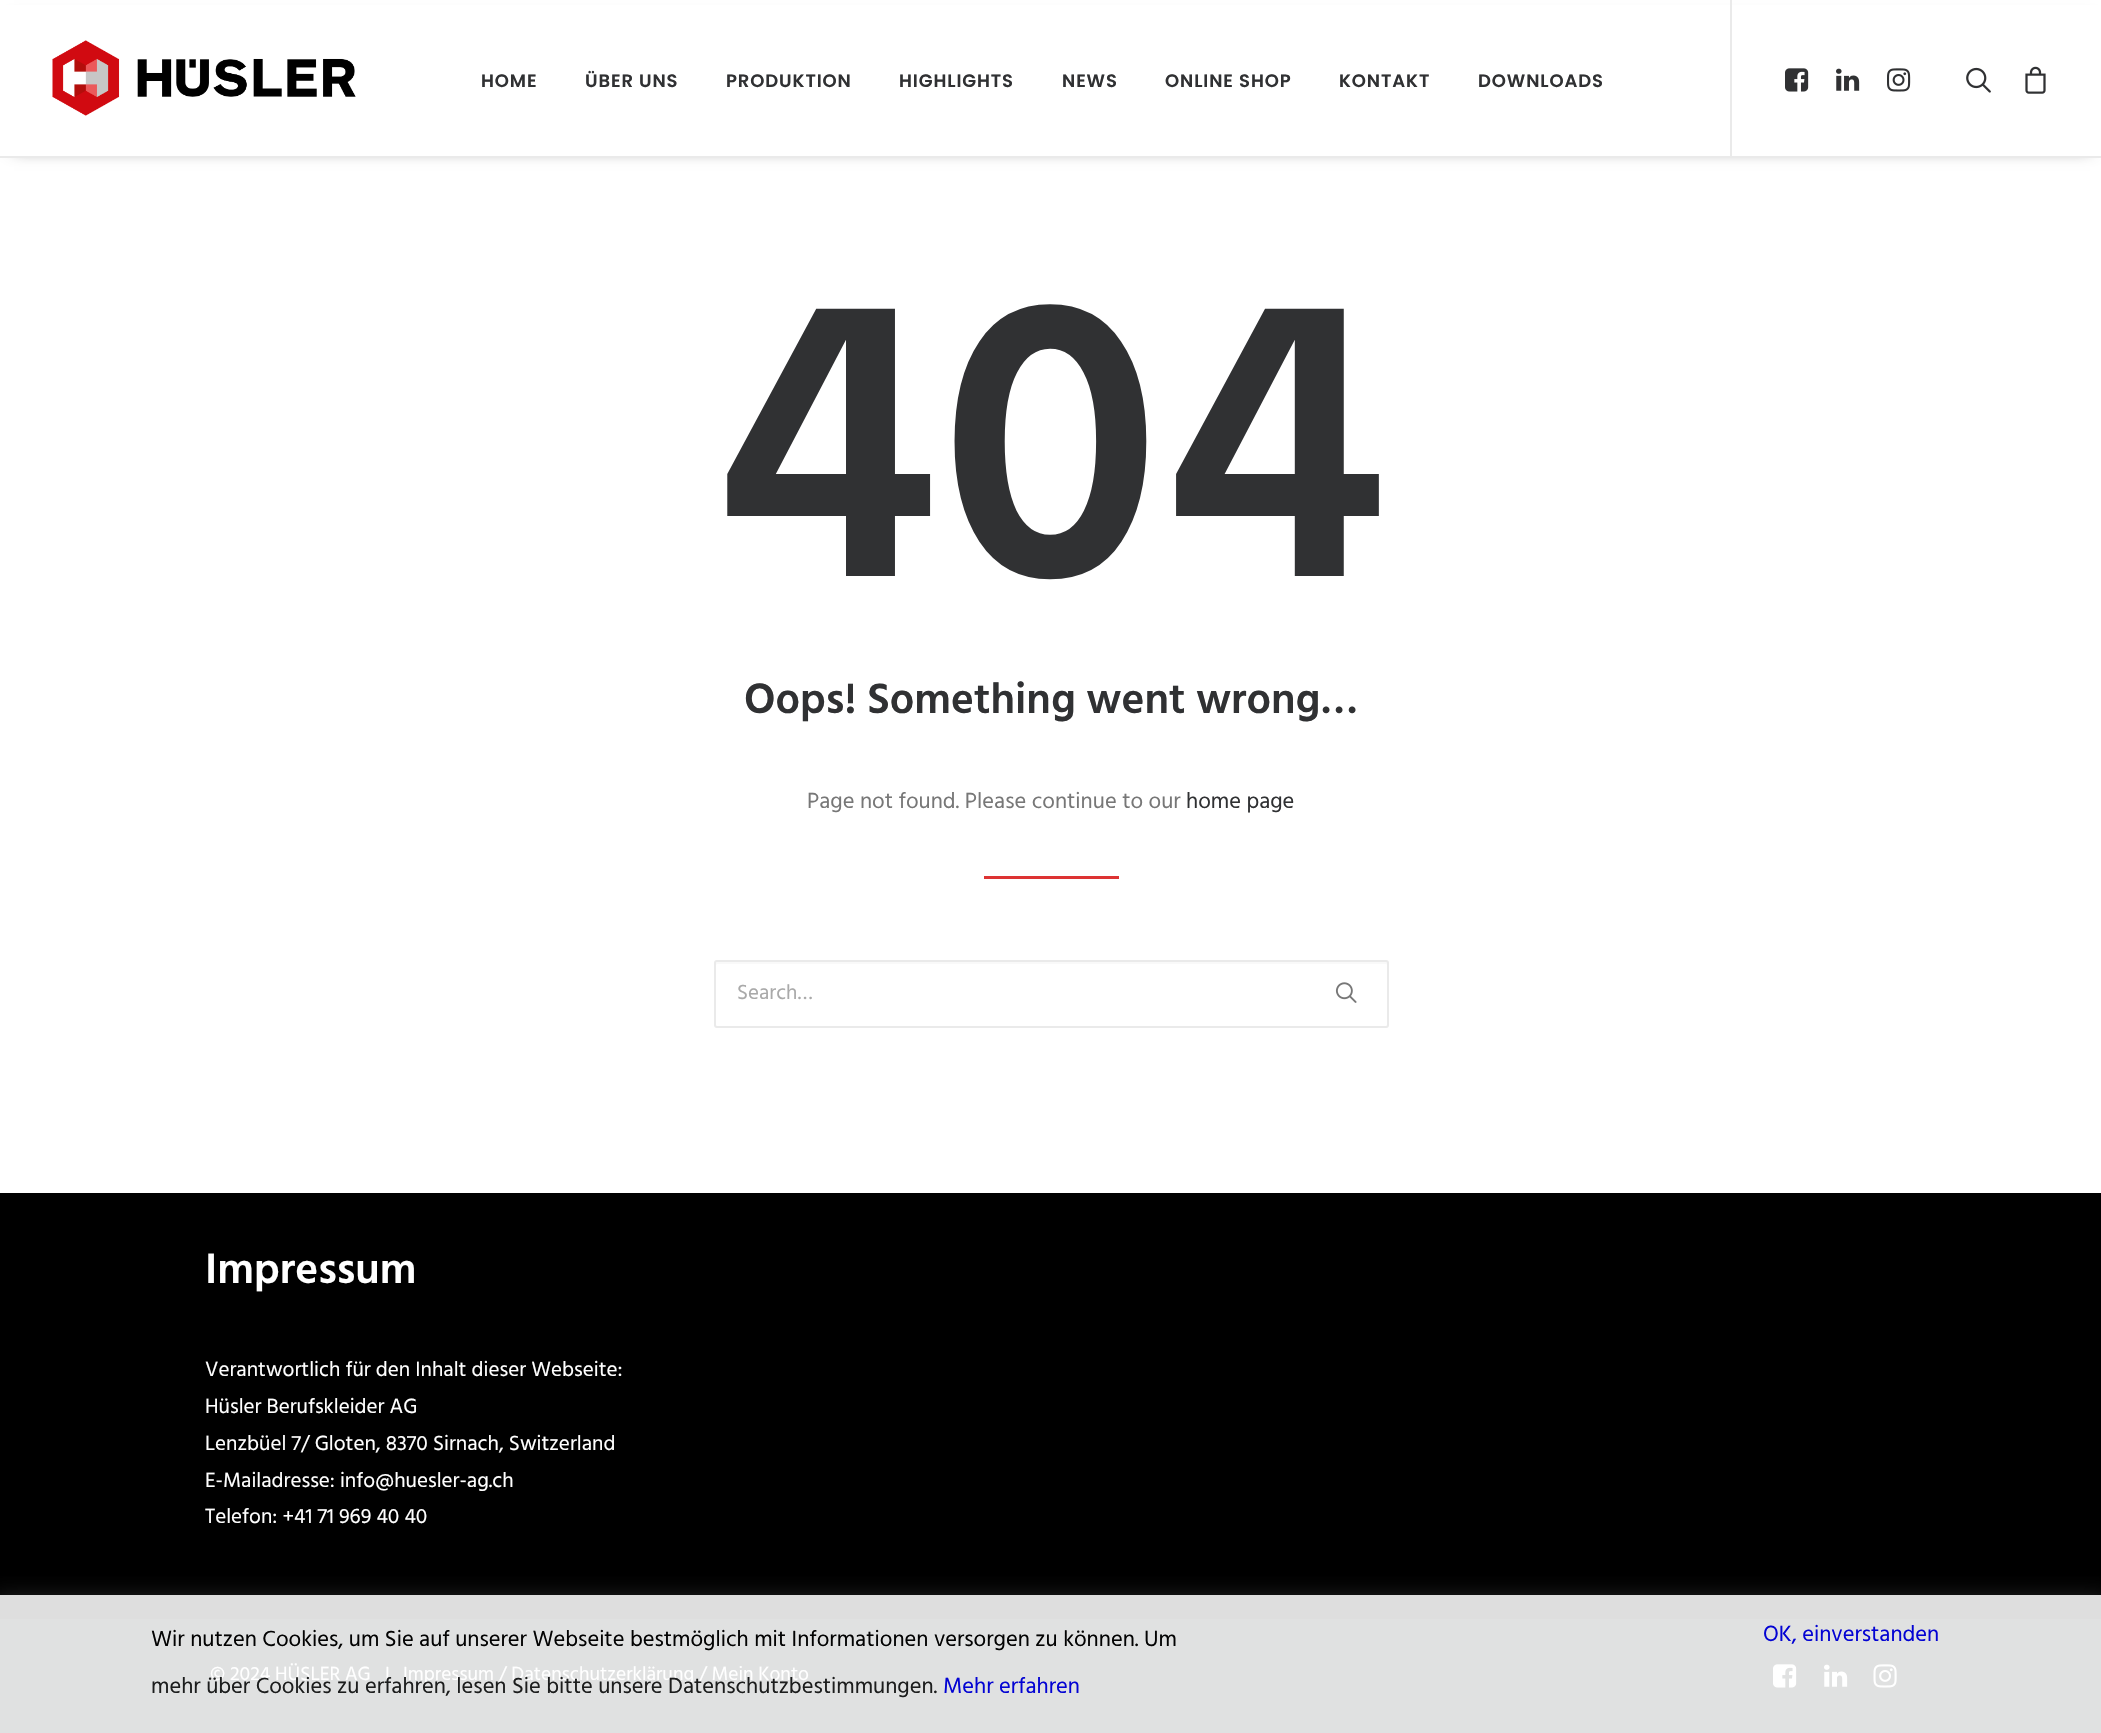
void draw(SkCanvas* canvas) {
  SkPaint paint;
  paint.setAntiAlias(true);
  auto face = [&](const char* family, int weight, float size, bool italic = false) {
    SkFontStyle style(weight, SkFontStyle::kNormal_Width,
      italic ? SkFontStyle::kItalic_Slant : SkFontStyle::kUpright_Slant);
    SkFont result(fontMgr->matchFamilyStyle(family, style), size);
    result.setSubpixel(true);
    return result;
  };
  auto writeSpaced = [&](const char* s, float x, float y, const SkFont& font, const SkPaint& ink, float letter, float word) {
    std::vector<SkGlyphID> glyphs(font.countText(s, strlen(s), SkTextEncoding::kUTF8));
    std::vector<float> xs(glyphs.size());
    font.textToGlyphs(s, strlen(s), SkTextEncoding::kUTF8, glyphs);
    font.getXPos(glyphs, xs, x);
    float extra = 0;
    for (size_t i = 0; i < glyphs.size(); i++) {
      xs[i] += extra;
      extra += letter + word * (glyphs[i] == font.unicharToGlyph(' '));
    }
    canvas->drawTextBlob(SkTextBlob::MakeFromPosHGlyphs(glyphs, xs, y, font), 0, 0, ink);
  };
  auto paste = [&](const char* path, float x, float y, float w, float h) {
    auto image = SkImages::DeferredFromEncodedData(SkData::MakeFromFileName(path));
    canvas->drawImageRect(image, SkRect::MakeXYWH(x, y, w, h), SkSamplingOptions());
  };
  auto shape = [&](const char* data, bool evenOdd = false) {
    SkPath result = *SkParsePath::FromSVGString(data);
    if (evenOdd) result.setFillType(SkPathFillType::kEvenOdd);
    return result;
  };
  canvas->clear(0xffffffff);
  paint.setColor(0x99000000);
  paint.setMaskFilter(SkMaskFilter::MakeBlur(kNormal_SkBlurStyle, 7.5f));
  canvas->drawRect(SkRect::MakeXYWH(14, 21, 2076, 128), paint);
  paint.setMaskFilter(nullptr);
  paint.setColor(0xffffffff);
  canvas->drawRect(SkRect::MakeXYWH(0, 5, 2101, 151), paint);
  paint.setColor(0xffeaeaea);
  canvas->drawRect(SkRect::MakeXYWH(0, 156, 2101, 2), paint);
  paste("img/1.png", 52, 40, 304, 76);
  canvas->drawRect(SkRect::MakeXYWH(1730, 0, 2, 156), paint);
  paste("img/2.png", 1785, 68, 24, 24);
  paste("img/3.png", 1836, 68, 24, 23);
  paste("img/4.png", 1887, 68, 24, 24);
  paste("img/5.png", 1966, 67, 25, 26);
  paste("img/6.png", 2025, 66, 21, 28);
  paint.setColor(0xffdd3333);
  canvas->drawRect(SkRect::MakeXYWH(984, 876, 135, 3), paint);
  paint.setColor(0xfff9f9f9);
  canvas->drawPath(shape("M717 964H1386C1387 964 1388 965 1388 966C1388 965 1389 962 1386 962H717L716 963V966C716 965 716 964 717 964Z"), paint);
  paint.setStroke(true);
  paint.setStrokeWidth(2);
  paint.setColor(0xffeaeaea);
  canvas->drawRoundRect(SkRect::MakeXYWH(715, 961, 673, 66), 2, 2, paint);
  paste("img/7.png", 1335, 982, 22, 21);
  paint.setStroke(false);
  {
    const struct { float x, y, w, h; SkColor color; } items[] = {
      {0, 1193, 2101, 402, 0xff000000},
      {0, 1595, 2101, 24, 0xffdedede},
      {0, 1619, 2101, 114, 0xffe0e1e1},
    };
    for (auto [x, y, w, h, color] : items) {
      paint.setColor(color);
      canvas->drawRect(SkRect::MakeXYWH(x, y, w, h), paint);
    }
  }
  paste("img/8.png", 1773, 1664, 24, 24);
  paste("img/9.png", 1824, 1664, 24, 23);
  paste("img/10.png", 1873, 1664, 24, 24);
  canvas->save();
  canvas->clipRect(SkRect::MakeXYWH(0, 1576, 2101, 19));
  paint.setColor(0xff2d2d2d);
  paint.setMaskFilter(SkMaskFilter::MakeBlur(kNormal_SkBlurStyle, 11));
  canvas->drawRect(SkRect::MakeXYWH(-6, 1599, 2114, 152), paint);
  paint.setMaskFilter(nullptr);
  canvas->restore();
  auto f0 = face("Poppins", 600, 18);
  paint.setColor(0xff303133);
  {
    const struct { const char* s; float x, y; } items[] = {
      {"HOME", 481, 87},
      {"ÜBER UNS", 585, 87},
      {"PRODUKTION", 726, 87},
      {"HIGHLIGHTS", 899, 87},
      {"NEWS", 1062, 87},
      {"ONLINE SHOP", 1165, 87},
      {"KONTAKT", 1339, 87},
      {"DOWNLOADS", 1478, 87},
    };
    for (auto [s, x, y] : items) {
      writeSpaced(s, x, y, f0, paint, 0.9f, 0);
    }
  }
  auto f1 = face("Hind", 600, 408);
  canvas->drawString("404", 713, 576, f1, paint);
  auto f2 = face("Hind", 600, 43.5f);
  canvas->drawString("Oops! Something went wrong…", 744, 713, f2, paint);
  auto f3 = face("Hind", 400, 22.5f);
  paint.setColor(0xff777777);
  canvas->drawString("Page not found. Please continue to our", 807, 808, f3, paint);
  paint.setColor(0xff303133);
  canvas->drawString("home page", 1186, 808, f3, paint);
  auto f4 = face("Hind", 400, 21);
  paint.setColor(0xffa9a9a9);
  canvas->drawString("Search…", 737, 999, f4, paint);
  paint.setColor(0xffffffff);
  canvas->drawString("Impressum", 205, 1283, f2, paint);
  auto f5 = face("Hind", 400, 21.1f);
  {
    const struct { const char* s; float x, y; } items[] = {
      {"Verantwortlich für den Inhalt dieser Webseite:", 205, 1376},
      {"Hüsler Berufskleider AG", 205, 1413},
      {"Lenzbüel 7/ Gloten, 8370 Sirnach, Switzerland", 205, 1450},
      {"E-Mailadresse: info@huesler-ag.ch", 205, 1487},
      {"Telefon: +41 71 969 40 40", 205, 1523},
    };
    for (auto [s, x, y] : items) {
      canvas->drawString(s, x, y, f5, paint);
    }
  }
  auto f6 = face("Hind", 400, 19.5f);
  canvas->drawString("© 2024 HÜSLER AG   I", 210, 1680, f6, paint);
  canvas->drawString("Impressum / Datenschutzerklärung / Mein Konto", 403, 1680, f6, paint);
  paint.setColor(0xff030303);
  canvas->drawString("Wir nutzen Cookies, um Sie auf unserer Webseite bestmöglich mit Informationen versorgen zu können. Um", 151, 1646, f3, paint);
  paint.setColor(0xff1c1d1d);
  canvas->drawString("mehr über Cookies zu erfahren, lesen Sie bitte unsere Datenschutzbestimmungen.", 151, 1693, f3, paint);
  paint.setColor(0xff0303d3);
  canvas->drawString("Mehr erfahren", 943, 1693, f3, paint);
  canvas->drawString("OK, einverstanden", 1763, 1641, f3, paint);
}
